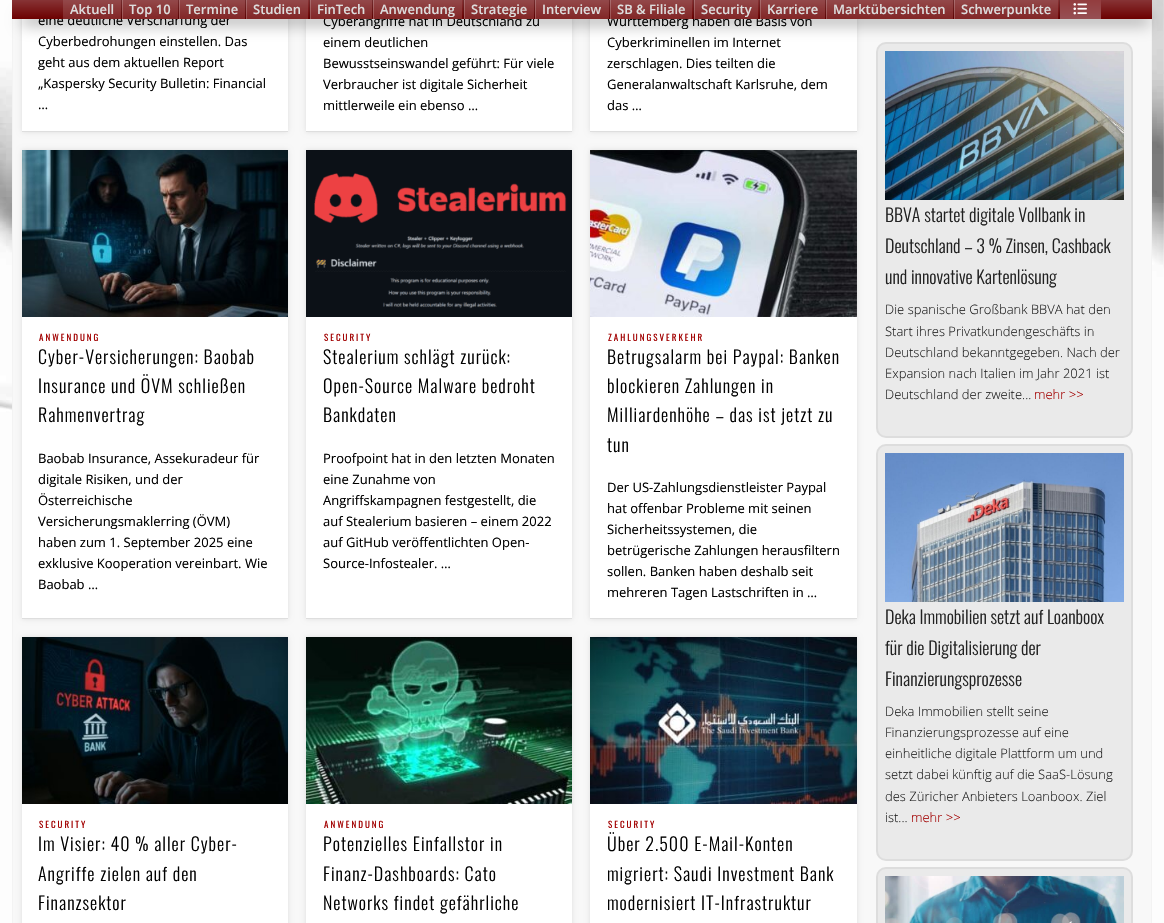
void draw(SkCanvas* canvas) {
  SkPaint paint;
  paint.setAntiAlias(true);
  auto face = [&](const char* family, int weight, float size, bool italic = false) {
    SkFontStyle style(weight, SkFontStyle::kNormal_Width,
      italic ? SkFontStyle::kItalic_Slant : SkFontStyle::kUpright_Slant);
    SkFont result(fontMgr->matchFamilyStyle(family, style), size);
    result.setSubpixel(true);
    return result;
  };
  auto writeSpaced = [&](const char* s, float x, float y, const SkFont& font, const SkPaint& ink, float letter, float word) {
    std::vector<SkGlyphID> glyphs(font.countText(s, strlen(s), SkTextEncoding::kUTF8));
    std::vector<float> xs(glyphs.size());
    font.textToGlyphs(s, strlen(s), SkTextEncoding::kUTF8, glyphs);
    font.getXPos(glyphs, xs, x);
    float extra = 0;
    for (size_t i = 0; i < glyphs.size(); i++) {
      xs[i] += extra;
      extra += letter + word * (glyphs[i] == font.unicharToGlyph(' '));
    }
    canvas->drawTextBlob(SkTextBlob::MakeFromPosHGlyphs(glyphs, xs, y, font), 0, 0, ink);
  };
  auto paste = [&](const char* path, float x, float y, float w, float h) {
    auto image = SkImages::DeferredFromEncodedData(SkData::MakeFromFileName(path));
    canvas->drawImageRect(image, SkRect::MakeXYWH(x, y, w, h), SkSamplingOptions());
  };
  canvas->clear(0xffffffff);
  paste("img/1.png", 0, 0, 1164, 923);
  {
    const struct { float x, y, w, h; SkColor color; } items[] = {
      {13, 19, 1138, 904, 0xfff8f8f8},
      {1151, 19, 1, 904, 0xfff3f3f3},
      {12, 19, 1, 904, 0xfff3f3f3},
    };
    for (auto [x, y, w, h, color] : items) {
      paint.setColor(color);
      canvas->drawRect(SkRect::MakeXYWH(x, y, w, h), paint);
    }
  }
  paint.setColor(0x1a000000);
  paint.setMaskFilter(SkMaskFilter::MakeBlur(kNormal_SkBlurStyle, 2.5f));
  canvas->drawRect(SkRect::MakeXYWH(22, -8, 266, 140), paint);
  paint.setMaskFilter(nullptr);
  paint.setColor(0xffffffff);
  canvas->drawRect(SkRect::MakeXYWH(22, 19, 266, 112), paint);
  paint.setColor(0x1a000000);
  paint.setMaskFilter(SkMaskFilter::MakeBlur(kNormal_SkBlurStyle, 2.5f));
  canvas->drawRect(SkRect::MakeXYWH(306, -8, 266, 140), paint);
  paint.setMaskFilter(nullptr);
  paint.setColor(0xffffffff);
  canvas->drawRect(SkRect::MakeXYWH(306, 19, 266, 112), paint);
  paint.setColor(0x1a000000);
  paint.setMaskFilter(SkMaskFilter::MakeBlur(kNormal_SkBlurStyle, 2.5f));
  canvas->drawRect(SkRect::MakeXYWH(590, -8, 267, 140), paint);
  paint.setMaskFilter(nullptr);
  paint.setColor(0xffffffff);
  canvas->drawRect(SkRect::MakeXYWH(590, 19, 267, 112), paint);
  paint.setColor(0xffeaeaea);
  canvas->drawRoundRect(SkRect::MakeXYWH(877, 43, 255, 394), 9, 9, paint);
  paint.setStroke(true);
  paint.setStrokeWidth(2);
  paint.setColor(0xffdddddd);
  canvas->drawRoundRect(SkRect::MakeXYWH(877, 43, 255, 394), 9, 9, paint);
  paint.setStroke(false);
  paint.setColor(0x80000000);
  paint.setMaskFilter(SkMaskFilter::MakeBlur(kNormal_SkBlurStyle, 8));
  canvas->drawRect(SkRect::MakeXYWH(22, 16, 1128, 7), paint);
  paint.setMaskFilter(nullptr);
  {
    const struct { float x, y, w, h; SkColor color; } items[] = {
      {22, 131, 266, 1, 0xffdedede},
      {306, 131, 266, 1, 0xffdedede},
      {590, 131, 267, 1, 0xffdedede},
    };
    for (auto [x, y, w, h, color] : items) {
      paint.setColor(color);
      canvas->drawRect(SkRect::MakeXYWH(x, y, w, h), paint);
    }
  }
  paint.setColor(0x1a000000);
  paint.setMaskFilter(SkMaskFilter::MakeBlur(kNormal_SkBlurStyle, 2.5f));
  canvas->drawRect(SkRect::MakeXYWH(22, 150, 266, 469), paint);
  paint.setMaskFilter(nullptr);
  paint.setColor(0xffffffff);
  canvas->drawRect(SkRect::MakeXYWH(22, 317, 266, 301), paint);
  paint.setColor(0xffdedede);
  canvas->drawRect(SkRect::MakeXYWH(22, 618, 266, 1), paint);
  paste("img/3.png", 22, 150, 266, 167);
  paint.setColor(0x1a000000);
  paint.setMaskFilter(SkMaskFilter::MakeBlur(kNormal_SkBlurStyle, 2.5f));
  canvas->drawRect(SkRect::MakeXYWH(306, 150, 266, 469), paint);
  paint.setMaskFilter(nullptr);
  paint.setColor(0xffffffff);
  canvas->drawRect(SkRect::MakeXYWH(306, 317, 266, 301), paint);
  paint.setColor(0xffdedede);
  canvas->drawRect(SkRect::MakeXYWH(306, 618, 266, 1), paint);
  paste("img/4.png", 306, 150, 266, 167);
  paint.setColor(0x1a000000);
  paint.setMaskFilter(SkMaskFilter::MakeBlur(kNormal_SkBlurStyle, 2.5f));
  canvas->drawRect(SkRect::MakeXYWH(590, 150, 267, 469), paint);
  paint.setMaskFilter(nullptr);
  paint.setColor(0xffffffff);
  canvas->drawRect(SkRect::MakeXYWH(590, 317, 267, 301), paint);
  paint.setColor(0xffdedede);
  canvas->drawRect(SkRect::MakeXYWH(590, 618, 267, 1), paint);
  paste("img/5.png", 590, 150, 267, 167);
  paint.setColor(0x1a000000);
  paint.setMaskFilter(SkMaskFilter::MakeBlur(kNormal_SkBlurStyle, 2.5f));
  canvas->drawRect(SkRect::MakeXYWH(22, 637, 266, 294), paint);
  paint.setMaskFilter(nullptr);
  paint.setColor(0xffffffff);
  canvas->drawRect(SkRect::MakeXYWH(22, 804, 266, 119), paint);
  paste("img/6.png", 22, 637, 266, 167);
  paint.setColor(0x1a000000);
  paint.setMaskFilter(SkMaskFilter::MakeBlur(kNormal_SkBlurStyle, 2.5f));
  canvas->drawRect(SkRect::MakeXYWH(306, 637, 266, 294), paint);
  paint.setMaskFilter(nullptr);
  paint.setColor(0xffffffff);
  canvas->drawRect(SkRect::MakeXYWH(306, 804, 266, 119), paint);
  paste("img/7.png", 306, 637, 266, 167);
  paint.setColor(0x1a000000);
  paint.setMaskFilter(SkMaskFilter::MakeBlur(kNormal_SkBlurStyle, 2.5f));
  canvas->drawRect(SkRect::MakeXYWH(590, 637, 267, 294), paint);
  paint.setMaskFilter(nullptr);
  paint.setColor(0xffffffff);
  canvas->drawRect(SkRect::MakeXYWH(590, 804, 267, 119), paint);
  paste("img/8.png", 590, 637, 267, 167);
  paste("img/9.png", 885, 51, 239, 149);
  paint.setColor(0xffeaeaea);
  canvas->drawRoundRect(SkRect::MakeXYWH(877, 445, 255, 415), 9, 9, paint);
  paint.setStroke(true);
  paint.setColor(0xffdddddd);
  canvas->drawRoundRect(SkRect::MakeXYWH(877, 445, 255, 415), 9, 9, paint);
  paste("img/10.png", 885, 453, 239, 149);
  paint.setStroke(false);
  paint.setColor(0xffeaeaea);
  canvas->drawRoundRect(SkRect::MakeXYWH(877, 868, 255, 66), 9, 9, paint);
  paint.setStroke(true);
  paint.setColor(0xffdddddd);
  canvas->drawRoundRect(SkRect::MakeXYWH(877, 868, 255, 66), 9, 9, paint);
  paste("img/11.png", 885, 876, 239, 47);
  auto f0 = face("Open Sans", 400, 13);
  paint.setStroke(false);
  paint.setColor(0xff000000);
  {
    const struct { const char* s; float x, y; } items[] = {
      {"eine deutliche Verschärfung der", 38, 25},
      {"Cyberbedrohungen einstellen. Das", 38, 46},
      {"geht aus dem aktuellen Report", 38, 67},
      {"„Kaspersky Security Bulletin: Financial", 38, 88},
      {"…", 38, 109},
      {"Cyberangriffe hat in Deutschland zu", 323, 26},
      {"einem deutlichen", 323, 47},
      {"Bewusstseinswandel geführt: Für viele", 323, 68},
      {"Verbraucher ist digitale Sicherheit", 323, 89},
      {"mittlerweile ein ebenso …", 323, 110},
      {"Württemberg haben die Basis von", 607, 26},
    };
    for (auto [s, x, y] : items) {
      canvas->drawString(s, x, y, f0, paint);
    }
  }
  {
    const SkColor colors[] = {0xff873335, 0xff6c0000};
    const float stops[] = {0, 1};
    const SkPoint ends[] = {{582, 0}, {582, 19}};
    paint.setShader(SkGradientShader::MakeLinear(ends, colors, stops, 2, SkTileMode::kClamp));
    paint.setAlpha(255);
  }
  canvas->drawRect(SkRect::MakeXYWH(12, 0, 1140, 19), paint);
  {
    const SkColor colors[] = {0xff933c3e, 0xff965054};
    const float stops[] = {0, 1};
    const SkPoint ends[] = {{1081, 0}, {1081, 19}};
    paint.setShader(SkGradientShader::MakeLinear(ends, colors, stops, 2, SkTileMode::kClamp));
    paint.setAlpha(255);
  }
  canvas->drawRect(SkRect::MakeXYWH(1060, 0, 41, 19), paint);
  paste("img/2.png", 1073, 3, 14, 12);
  paint.setShader(nullptr);
  paint.setColor(0x26000000);
  canvas->drawRect(SkRect::MakeXYWH(1059, 0, 1, 19), paint);
  paint.setColor(0x33ffffff);
  canvas->drawRect(SkRect::MakeXYWH(954, 0, 1, 19), paint);
  {
    const SkColor colors[] = {0x1affffff, 0x26ffffff};
    const float stops[] = {0, 1};
    const SkPoint ends[] = {{1006, 0}, {1006, 19}};
    paint.setShader(SkGradientShader::MakeLinear(ends, colors, stops, 2, SkTileMode::kClamp));
    paint.setAlpha(255);
  }
  canvas->drawRect(SkRect::MakeXYWH(954, 0, 104, 19), paint);
  auto f1 = face("Open Sans", 600, 13);
  paint.setShader(nullptr);
  paint.setColor(0xffdddddd);
  canvas->drawString("Schwerpunkte", 961, 14, f1, paint);
  paint.setColor(0x33ffffff);
  canvas->drawRect(SkRect::MakeXYWH(826, 0, 1, 19), paint);
  {
    const SkColor colors[] = {0x1affffff, 0x26ffffff};
    const float stops[] = {0, 1};
    const SkPoint ends[] = {{890, 0}, {890, 19}};
    paint.setShader(SkGradientShader::MakeLinear(ends, colors, stops, 2, SkTileMode::kClamp));
    paint.setAlpha(255);
  }
  canvas->drawRect(SkRect::MakeXYWH(826, 0, 127, 19), paint);
  paint.setShader(nullptr);
  paint.setColor(0xffdddddd);
  canvas->drawString("Marktübersichten", 833, 14, f1, paint);
  paint.setColor(0x26000000);
  canvas->drawRect(SkRect::MakeXYWH(825, 0, 1, 19), paint);
  paint.setColor(0x33ffffff);
  canvas->drawRect(SkRect::MakeXYWH(760, 0, 1, 19), paint);
  {
    const SkColor colors[] = {0x1affffff, 0x26ffffff};
    const float stops[] = {0, 1};
    const SkPoint ends[] = {{793, 0}, {793, 19}};
    paint.setShader(SkGradientShader::MakeLinear(ends, colors, stops, 2, SkTileMode::kClamp));
    paint.setAlpha(255);
  }
  canvas->drawRect(SkRect::MakeXYWH(760, 0, 65, 19), paint);
  paint.setShader(nullptr);
  paint.setColor(0xffdddddd);
  canvas->drawString("Karriere", 767, 14, f1, paint);
  paint.setColor(0x26000000);
  canvas->drawRect(SkRect::MakeXYWH(759, 0, 1, 19), paint);
  paint.setColor(0x33ffffff);
  canvas->drawRect(SkRect::MakeXYWH(694, 0, 1, 19), paint);
  {
    const SkColor colors[] = {0x1affffff, 0x26ffffff};
    const float stops[] = {0, 1};
    const SkPoint ends[] = {{726, 0}, {726, 19}};
    paint.setShader(SkGradientShader::MakeLinear(ends, colors, stops, 2, SkTileMode::kClamp));
    paint.setAlpha(255);
  }
  canvas->drawRect(SkRect::MakeXYWH(694, 0, 64, 19), paint);
  paint.setShader(nullptr);
  paint.setColor(0xffdddddd);
  canvas->drawString("Security", 701, 14, f1, paint);
  paint.setColor(0x26000000);
  canvas->drawRect(SkRect::MakeXYWH(693, 0, 1, 19), paint);
  paint.setColor(0x33ffffff);
  canvas->drawRect(SkRect::MakeXYWH(610, 0, 1, 19), paint);
  {
    const SkColor colors[] = {0x1affffff, 0x26ffffff};
    const float stops[] = {0, 1};
    const SkPoint ends[] = {{651, 0}, {651, 19}};
    paint.setShader(SkGradientShader::MakeLinear(ends, colors, stops, 2, SkTileMode::kClamp));
    paint.setAlpha(255);
  }
  canvas->drawRect(SkRect::MakeXYWH(610, 0, 82, 19), paint);
  paint.setShader(nullptr);
  paint.setColor(0xffdddddd);
  canvas->drawString("SB & Filiale", 617, 14, f1, paint);
  paint.setColor(0x26000000);
  canvas->drawRect(SkRect::MakeXYWH(609, 0, 1, 19), paint);
  paint.setColor(0x33ffffff);
  canvas->drawRect(SkRect::MakeXYWH(535, 0, 1, 19), paint);
  {
    const SkColor colors[] = {0x1affffff, 0x26ffffff};
    const float stops[] = {0, 1};
    const SkPoint ends[] = {{572, 0}, {572, 19}};
    paint.setShader(SkGradientShader::MakeLinear(ends, colors, stops, 2, SkTileMode::kClamp));
    paint.setAlpha(255);
  }
  canvas->drawRect(SkRect::MakeXYWH(535, 0, 74, 19), paint);
  paint.setShader(nullptr);
  paint.setColor(0xffdddddd);
  canvas->drawString("Interview", 542, 14, f1, paint);
  paint.setColor(0x26000000);
  canvas->drawRect(SkRect::MakeXYWH(534, 0, 1, 19), paint);
  paint.setColor(0x33ffffff);
  canvas->drawRect(SkRect::MakeXYWH(464, 0, 1, 19), paint);
  {
    const SkColor colors[] = {0x1affffff, 0x26ffffff};
    const float stops[] = {0, 1};
    const SkPoint ends[] = {{499, 0}, {499, 19}};
    paint.setShader(SkGradientShader::MakeLinear(ends, colors, stops, 2, SkTileMode::kClamp));
    paint.setAlpha(255);
  }
  canvas->drawRect(SkRect::MakeXYWH(464, 0, 70, 19), paint);
  paint.setShader(nullptr);
  paint.setColor(0xffdddddd);
  canvas->drawString("Strategie", 471, 14, f1, paint);
  paint.setColor(0x26000000);
  canvas->drawRect(SkRect::MakeXYWH(463, 0, 1, 19), paint);
  paint.setColor(0x33ffffff);
  canvas->drawRect(SkRect::MakeXYWH(373, 0, 1, 19), paint);
  {
    const SkColor colors[] = {0x1affffff, 0x26ffffff};
    const float stops[] = {0, 1};
    const SkPoint ends[] = {{418, 0}, {418, 19}};
    paint.setShader(SkGradientShader::MakeLinear(ends, colors, stops, 2, SkTileMode::kClamp));
    paint.setAlpha(255);
  }
  canvas->drawRect(SkRect::MakeXYWH(373, 0, 89, 19), paint);
  paint.setShader(nullptr);
  paint.setColor(0xffdddddd);
  canvas->drawString("Anwendung", 380, 14, f1, paint);
  paint.setColor(0x26000000);
  canvas->drawRect(SkRect::MakeXYWH(372, 0, 1, 19), paint);
  paint.setColor(0x33ffffff);
  canvas->drawRect(SkRect::MakeXYWH(310, 0, 1, 19), paint);
  {
    const SkColor colors[] = {0x1affffff, 0x26ffffff};
    const float stops[] = {0, 1};
    const SkPoint ends[] = {{341, 0}, {341, 19}};
    paint.setShader(SkGradientShader::MakeLinear(ends, colors, stops, 2, SkTileMode::kClamp));
    paint.setAlpha(255);
  }
  canvas->drawRect(SkRect::MakeXYWH(310, 0, 62, 19), paint);
  paint.setShader(nullptr);
  paint.setColor(0xffdddddd);
  canvas->drawString("FinTech", 317, 14, f1, paint);
  paint.setColor(0x26000000);
  canvas->drawRect(SkRect::MakeXYWH(309, 0, 1, 19), paint);
  paint.setColor(0x33ffffff);
  canvas->drawRect(SkRect::MakeXYWH(246, 0, 1, 19), paint);
  {
    const SkColor colors[] = {0x1affffff, 0x26ffffff};
    const float stops[] = {0, 1};
    const SkPoint ends[] = {{277, 0}, {277, 19}};
    paint.setShader(SkGradientShader::MakeLinear(ends, colors, stops, 2, SkTileMode::kClamp));
    paint.setAlpha(255);
  }
  canvas->drawRect(SkRect::MakeXYWH(246, 0, 62, 19), paint);
  paint.setShader(nullptr);
  paint.setColor(0xffdddddd);
  canvas->drawString("Studien", 253, 14, f1, paint);
  paint.setColor(0x26000000);
  canvas->drawRect(SkRect::MakeXYWH(245, 0, 1, 19), paint);
  paint.setColor(0x33ffffff);
  canvas->drawRect(SkRect::MakeXYWH(179, 0, 1, 19), paint);
  {
    const SkColor colors[] = {0x1affffff, 0x26ffffff};
    const float stops[] = {0, 1};
    const SkPoint ends[] = {{212, 0}, {212, 19}};
    paint.setShader(SkGradientShader::MakeLinear(ends, colors, stops, 2, SkTileMode::kClamp));
    paint.setAlpha(255);
  }
  canvas->drawRect(SkRect::MakeXYWH(179, 0, 66, 19), paint);
  paint.setShader(nullptr);
  paint.setColor(0xffdddddd);
  canvas->drawString("Termine", 186, 14, f1, paint);
  paint.setColor(0x26000000);
  canvas->drawRect(SkRect::MakeXYWH(178, 0, 1, 19), paint);
  paint.setColor(0x33ffffff);
  canvas->drawRect(SkRect::MakeXYWH(122, 0, 1, 19), paint);
  {
    const SkColor colors[] = {0x1affffff, 0x26ffffff};
    const float stops[] = {0, 1};
    const SkPoint ends[] = {{150, 0}, {150, 19}};
    paint.setShader(SkGradientShader::MakeLinear(ends, colors, stops, 2, SkTileMode::kClamp));
    paint.setAlpha(255);
  }
  canvas->drawRect(SkRect::MakeXYWH(122, 0, 56, 19), paint);
  paint.setShader(nullptr);
  paint.setColor(0xffdddddd);
  canvas->drawString("Top 10", 129, 14, f1, paint);
  paint.setColor(0x26000000);
  canvas->drawRect(SkRect::MakeXYWH(121, 0, 1, 19), paint);
  {
    const SkColor colors[] = {0x1affffff, 0x26ffffff};
    const float stops[] = {0, 1};
    const SkPoint ends[] = {{92, 0}, {92, 19}};
    paint.setShader(SkGradientShader::MakeLinear(ends, colors, stops, 2, SkTileMode::kClamp));
    paint.setAlpha(255);
  }
  canvas->drawRect(SkRect::MakeXYWH(63, 0, 58, 19), paint);
  paint.setShader(nullptr);
  paint.setColor(0xffdddddd);
  canvas->drawString("Aktuell", 70, 14, f1, paint);
  paint.setColor(0x26000000);
  canvas->drawRect(SkRect::MakeXYWH(953, 0, 1, 19), paint);
  paint.setColor(0xff000000);
  {
    const struct { const char* s; float x, y; } items[] = {
      {"Cyberkriminellen im Internet", 607, 47},
      {"zerschlagen. Dies teilten die", 607, 68},
      {"Generalanwaltschaft Karlsruhe, dem", 607, 89},
      {"das …", 607, 110},
    };
    for (auto [s, x, y] : items) {
      canvas->drawString(s, x, y, f0, paint);
    }
  }
  auto f2 = face("Oswald", 400, 9);
  paint.setColor(0xffa20000);
  writeSpaced("ANWENDUNG", 39, 341, f2, paint, 2, 0);
  auto f3 = face("Oswald", 300, 18);
  paint.setColor(0xff000000);
  {
    const struct { const char* s; float x, y; } items[] = {
      {"Cyber-Versicherungen: Baobab", 38, 364},
      {"Insurance und ÖVM schließen", 38, 393},
      {"Rahmenvertrag", 38, 422},
    };
    for (auto [s, x, y] : items) {
      writeSpaced(s, x, y, f3, paint, 1, 0);
    }
  }
  {
    const struct { const char* s; float x, y; } items[] = {
      {"Baobab Insurance, Assekuradeur für", 38, 463},
      {"digitale Risiken, und der", 38, 484},
      {"Österreichische", 38, 505},
      {"Versicherungsmaklerring (ÖVM)", 38, 526},
      {"haben zum 1. September 2025 eine", 38, 547},
      {"exklusive Kooperation vereinbart. Wie", 38, 568},
      {"Baobab …", 38, 589},
    };
    for (auto [s, x, y] : items) {
      canvas->drawString(s, x, y, f0, paint);
    }
  }
  paint.setColor(0xffa20000);
  writeSpaced("SECURITY", 324, 341, f2, paint, 2, 0);
  paint.setColor(0xff000000);
  {
    const struct { const char* s; float x, y; } items[] = {
      {"Stealerium schlägt zurück:", 323, 364},
      {"Open-Source Malware bedroht", 323, 393},
      {"Bankdaten", 323, 422},
    };
    for (auto [s, x, y] : items) {
      writeSpaced(s, x, y, f3, paint, 1, 0);
    }
  }
  {
    const struct { const char* s; float x, y; } items[] = {
      {"Proofpoint hat in den letzten Monaten", 323, 463},
      {"eine Zunahme von", 323, 484},
      {"Angriffskampagnen festgestellt, die", 323, 505},
      {"auf Stealerium basieren – einem 2022", 323, 526},
      {"auf GitHub veröffentlichten Open-", 323, 547},
      {"Source-Infostealer. …", 323, 568},
    };
    for (auto [s, x, y] : items) {
      canvas->drawString(s, x, y, f0, paint);
    }
  }
  paint.setColor(0xffa20000);
  writeSpaced("ZAHLUNGSVERKEHR", 608, 341, f2, paint, 2, 0);
  paint.setColor(0xff000000);
  {
    const struct { const char* s; float x, y; } items[] = {
      {"Betrugsalarm bei Paypal: Banken", 607, 364},
      {"blockieren Zahlungen in", 607, 393},
      {"Milliardenhöhe – das ist jetzt zu", 607, 422},
      {"tun", 607, 452},
    };
    for (auto [s, x, y] : items) {
      writeSpaced(s, x, y, f3, paint, 1, 0);
    }
  }
  {
    const struct { const char* s; float x, y; } items[] = {
      {"Der US-Zahlungsdienstleister Paypal", 607, 492},
      {"hat offenbar Probleme mit seinen", 607, 513},
      {"Sicherheitssystemen, die", 607, 534},
      {"betrügerische Zahlungen herausfiltern", 607, 555},
      {"sollen. Banken haben deshalb seit", 607, 576},
      {"mehreren Tagen Lastschriften in …", 607, 597},
    };
    for (auto [s, x, y] : items) {
      canvas->drawString(s, x, y, f0, paint);
    }
  }
  paint.setColor(0xffa20000);
  writeSpaced("SECURITY", 39, 828, f2, paint, 2, 0);
  paint.setColor(0xff000000);
  {
    const struct { const char* s; float x, y; } items[] = {
      {"Im Visier: 40 % aller Cyber-", 38, 851},
      {"Angriffe zielen auf den", 38, 881},
      {"Finanzsektor", 38, 910},
    };
    for (auto [s, x, y] : items) {
      writeSpaced(s, x, y, f3, paint, 1, 0);
    }
  }
  paint.setColor(0xffa20000);
  writeSpaced("ANWENDUNG", 324, 828, f2, paint, 2, 0);
  paint.setColor(0xff000000);
  {
    const struct { const char* s; float x, y; } items[] = {
      {"Potenzielles Einfallstor in", 323, 851},
      {"Finanz-Dashboards: Cato", 323, 881},
      {"Networks findet gefährliche", 323, 910},
    };
    for (auto [s, x, y] : items) {
      writeSpaced(s, x, y, f3, paint, 1, 0);
    }
  }
  paint.setColor(0xffa20000);
  writeSpaced("SECURITY", 608, 828, f2, paint, 2, 0);
  paint.setColor(0xff000000);
  {
    const struct { const char* s; float x, y; } items[] = {
      {"Über 2.500 E-Mail-Konten", 607, 851},
      {"migriert: Saudi Investment Bank", 607, 881},
      {"modernisiert IT-Infrastruktur", 607, 910},
    };
    for (auto [s, x, y] : items) {
      writeSpaced(s, x, y, f3, paint, 1, 0);
    }
  }
  paint.setColor(0xff222222);
  {
    const struct { const char* s; float x, y; } items[] = {
      {"BBVA startet digitale Vollbank in", 885, 222},
      {"Deutschland – 3 % Zinsen, Cashback", 885, 253},
      {"und innovative Kartenlösung", 885, 284},
    };
    for (auto [s, x, y] : items) {
      canvas->drawString(s, x, y, f3, paint);
    }
  }
  auto f4 = face("Open Sans", 300, 13);
  {
    const struct { const char* s; float x, y; } items[] = {
      {"Die spanische Großbank BBVA hat den", 885, 314},
      {"Start ihres Privatkundengeschäfts in", 885, 336},
      {"Deutschland bekanntgegeben. Nach der", 885, 357},
      {"Expansion nach Italien im Jahr 2021 ist", 885, 378},
      {"Deutschland der zweite...", 885, 399},
    };
    for (auto [s, x, y] : items) {
      canvas->drawString(s, x, y, f4, paint);
    }
  }
  paint.setColor(0xffa20000);
  canvas->drawString("mehr >>", 1034, 399, f4, paint);
  paint.setColor(0xff222222);
  {
    const struct { const char* s; float x, y; } items[] = {
      {"Deka Immobilien setzt auf Loanboox", 885, 624},
      {"für die Digitalisierung der", 885, 655},
      {"Finanzierungsprozesse", 885, 686},
    };
    for (auto [s, x, y] : items) {
      canvas->drawString(s, x, y, f3, paint);
    }
  }
  {
    const struct { const char* s; float x, y; } items[] = {
      {"Deka Immobilien stellt seine", 885, 716},
      {"Finanzierungsprozesse auf eine", 885, 737},
      {"einheitliche digitale Plattform um und", 885, 758},
      {"setzt dabei künftig auf die SaaS-Lösung", 885, 779},
      {"des Züricher Anbieters Loanboox. Ziel", 885, 801},
      {"ist...", 885, 822},
    };
    for (auto [s, x, y] : items) {
      canvas->drawString(s, x, y, f4, paint);
    }
  }
  paint.setColor(0xffa20000);
  canvas->drawString("mehr >>", 911, 822, f4, paint);
}
